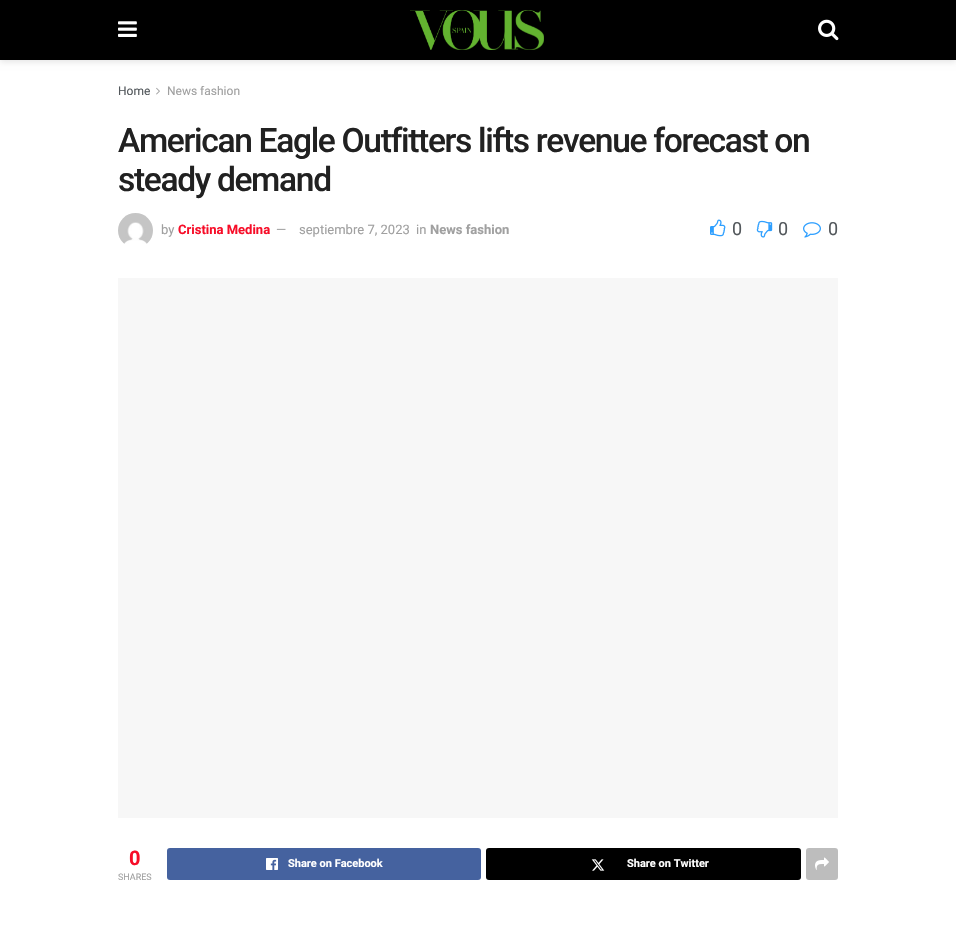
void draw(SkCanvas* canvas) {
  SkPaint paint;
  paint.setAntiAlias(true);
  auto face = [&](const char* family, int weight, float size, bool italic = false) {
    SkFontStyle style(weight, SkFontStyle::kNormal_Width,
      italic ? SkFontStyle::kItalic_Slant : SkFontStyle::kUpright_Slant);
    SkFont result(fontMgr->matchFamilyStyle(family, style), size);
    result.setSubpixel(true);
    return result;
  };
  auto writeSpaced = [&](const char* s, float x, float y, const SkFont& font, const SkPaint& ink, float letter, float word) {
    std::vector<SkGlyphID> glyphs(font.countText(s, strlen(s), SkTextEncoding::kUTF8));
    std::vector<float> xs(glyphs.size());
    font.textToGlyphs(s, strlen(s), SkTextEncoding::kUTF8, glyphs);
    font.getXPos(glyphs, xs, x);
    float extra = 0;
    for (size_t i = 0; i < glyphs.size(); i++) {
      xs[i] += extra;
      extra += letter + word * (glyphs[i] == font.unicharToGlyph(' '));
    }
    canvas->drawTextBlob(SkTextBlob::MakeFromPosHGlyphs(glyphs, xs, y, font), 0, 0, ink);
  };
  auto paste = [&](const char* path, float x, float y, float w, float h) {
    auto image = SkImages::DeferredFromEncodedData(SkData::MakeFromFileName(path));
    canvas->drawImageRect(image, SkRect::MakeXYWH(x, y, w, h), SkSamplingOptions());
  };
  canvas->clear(0xffffffff);
  paint.setColor(0x1a000000);
  paint.setMaskFilter(SkMaskFilter::MakeBlur(kNormal_SkBlurStyle, 3));
  canvas->drawRect(SkRect::MakeXYWH(0, 2, 956, 60), paint);
  paint.setMaskFilter(nullptr);
  paint.setColor(0xff000000);
  canvas->drawRect(SkRect::MakeXYWH(0, 0, 956, 60), paint);
  paste("img/1.png", 118, 21, 19, 16);
  paste("img/2.png", 410, 10, 134, 40);
  paste("img/3.png", 818, 19, 21, 22);
  paste("img/4.png", 156, 87, 4, 8);
  paste("img/5.png", 118, 213, 35, 31);
  paste("img/6.png", 710, 219, 16, 18);
  paste("img/7.png", 756, 220, 17, 18);
  paste("img/8.png", 803, 222, 18, 16);
  paint.setColor(0xfff7f7f7);
  canvas->drawRect(SkRect::MakeXYWH(118, 278, 720, 540), paint);
  paint.setColor(0xff45629f);
  canvas->drawRoundRect(SkRect::MakeXYWH(167, 848, 314, 32), 3, 3, paint);
  paste("img/9.png", 266, 858, 12, 12);
  paint.setColor(0xff000000);
  canvas->drawRoundRect(SkRect::MakeXYWH(486, 848, 315, 32), 3, 3, paint);
  paste("img/10.png", 591, 859, 14, 12);
  paint.setColor(0xffbdbdbd);
  canvas->drawRoundRect(SkRect::MakeXYWH(806, 848, 32, 32), 3, 3, paint);
  paste("img/11.png", 815, 857, 14, 13);
  auto f0 = face("Roboto", 400, 12);
  paint.setColor(0xff53585c);
  canvas->drawString("Home", 118, 95, f0, paint);
  paint.setColor(0xffa0a0a0);
  canvas->drawString("News fashion", 167, 95, f0, paint);
  auto f1 = face("Roboto", 500, 33.6f);
  paint.setColor(0xff212121);
  writeSpaced("American Eagle Outfitters lifts revenue forecast on", 118, 152, f1, paint, -1.35f, 0);
  writeSpaced("steady demand", 118, 191, f1, paint, -1.35f, 0);
  auto f2 = face("Roboto", 400, 13);
  paint.setColor(0xffa0a0a0);
  canvas->drawString("by", 161, 234, f2, paint);
  auto f3 = face("Roboto", 700, 13);
  paint.setColor(0xfff70d28);
  canvas->drawString("Cristina Medina", 178, 234, f3, paint);
  paint.setColor(0xffa0a0a0);
  {
    const struct { const char* s; float x, y; } items[] = {
      {"—", 276, 234},
      {"septiembre 7, 2023", 299, 234},
      {"in", 416, 234},
    };
    for (auto [s, x, y] : items) {
      canvas->drawString(s, x, y, f2, paint);
    }
  }
  canvas->drawString("News fashion", 430, 234, f3, paint);
  auto f4 = face("Roboto", 400, 18);
  paint.setColor(0xff53585c);
  {
    const struct { const char* s; float x, y; } items[] = {
      {"0", 732, 235},
      {"0", 778, 235},
      {"0", 828, 235},
    };
    for (auto [s, x, y] : items) {
      canvas->drawString(s, x, y, f4, paint);
    }
  }
  auto f5 = face("Roboto", 700, 20);
  paint.setColor(0xfff70d28);
  canvas->drawString("0", 129, 865, f5, paint);
  auto f6 = face("Roboto", 400, 9);
  paint.setColor(0xffa0a0a0);
  canvas->drawString("SHARES", 118, 880, f6, paint);
  auto f7 = face("Roboto", 700, 11);
  paint.setColor(0xffffffff);
  canvas->drawString("Share on Facebook", 288, 867, f7, paint);
  canvas->drawString("Share on Twitter", 627, 867, f7, paint);
}
